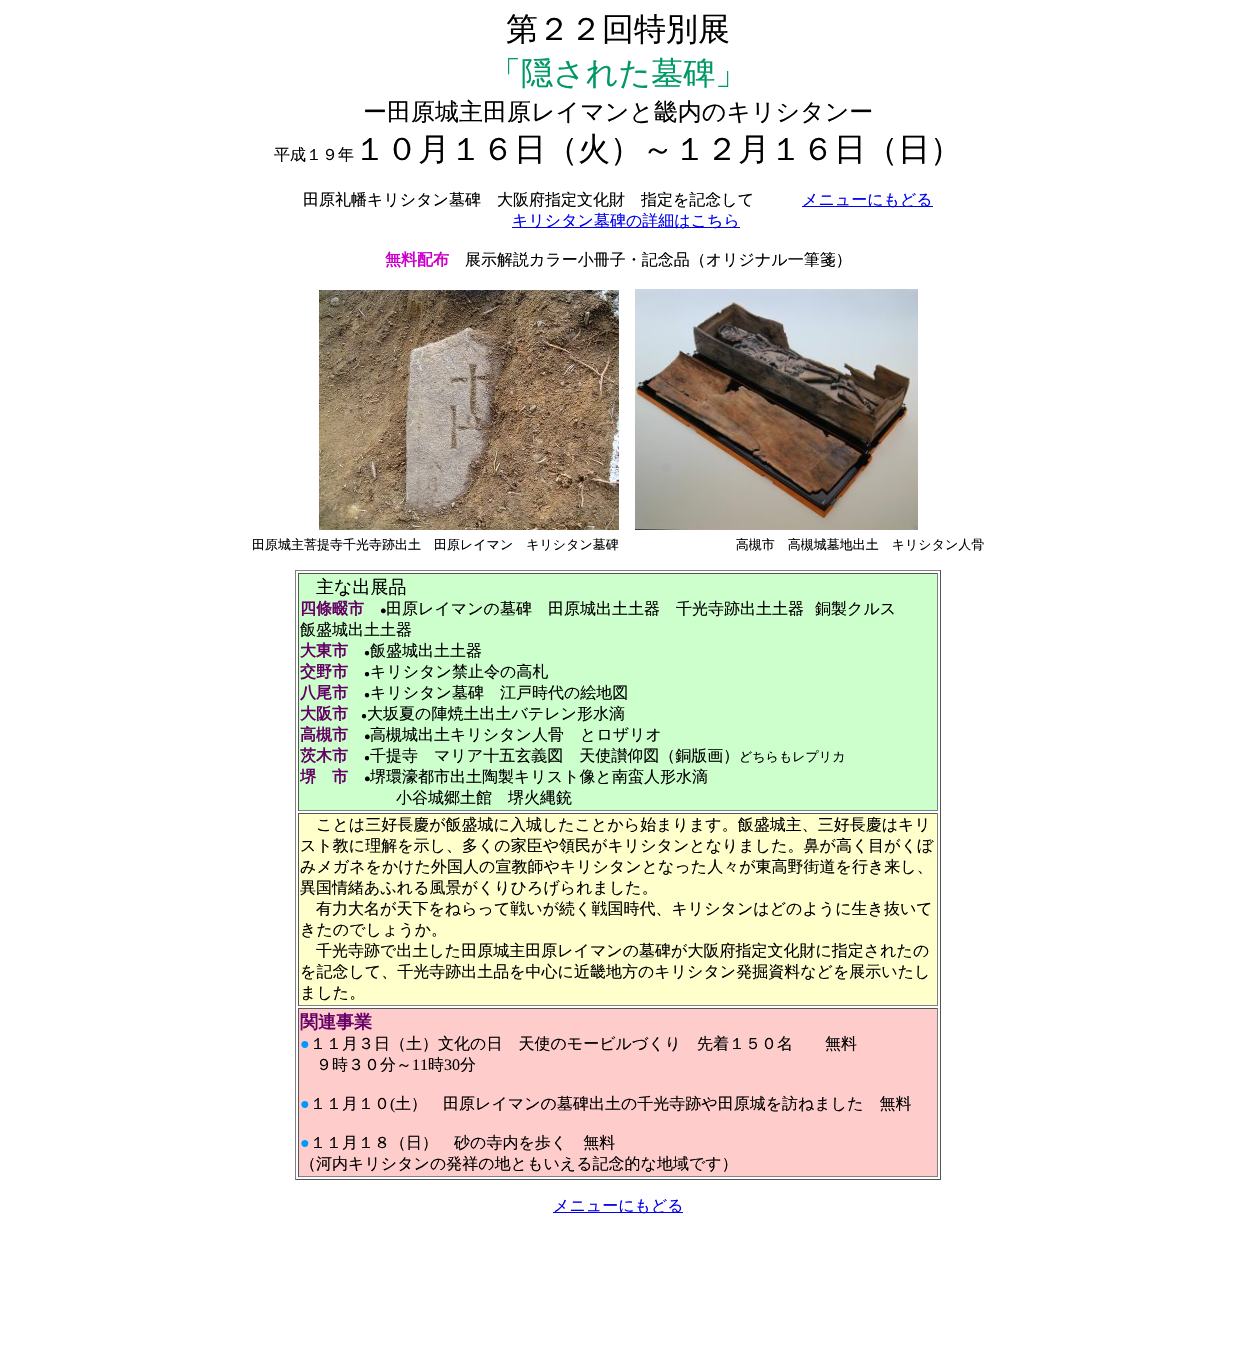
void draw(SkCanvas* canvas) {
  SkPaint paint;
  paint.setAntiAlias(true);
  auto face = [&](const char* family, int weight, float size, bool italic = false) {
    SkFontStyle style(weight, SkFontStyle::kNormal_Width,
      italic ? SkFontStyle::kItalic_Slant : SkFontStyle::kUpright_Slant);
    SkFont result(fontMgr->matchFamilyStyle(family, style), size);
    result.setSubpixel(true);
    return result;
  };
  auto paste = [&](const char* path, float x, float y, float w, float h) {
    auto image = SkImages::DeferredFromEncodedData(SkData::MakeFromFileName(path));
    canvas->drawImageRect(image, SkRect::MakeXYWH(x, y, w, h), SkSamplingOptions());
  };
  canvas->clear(0xffffffff);
  paint.setColor(0xff0000ee);
  canvas->drawRect(SkRect::MakeXYWH(802, 206, 131, 1), paint);
  canvas->drawRect(SkRect::MakeXYWH(512, 227, 228, 1), paint);
  paste("img/1.png", 319, 290, 300, 240);
  paste("img/2.png", 635, 289, 283, 241);
  {
    const struct { float x, y, w, h; SkColor color; } items[] = {
      {295, 570, 646, 1, 0xff808080},
      {940, 570, 1, 610, 0xff555555},
      {295, 1179, 646, 1, 0xff555555},
      {295, 570, 1, 610, 0xff808080},
      {299, 574, 638, 236, 0xffccffcc},
      {298, 573, 640, 1, 0xff555555},
      {937, 573, 1, 238, 0xff808080},
      {298, 810, 640, 1, 0xff808080},
      {298, 573, 1, 238, 0xff555555},
      {299, 814, 638, 191, 0xffffffcc},
      {298, 813, 640, 1, 0xff555555},
      {937, 813, 1, 193, 0xff808080},
      {298, 1005, 640, 1, 0xff808080},
      {298, 813, 1, 193, 0xff555555},
      {299, 1009, 638, 167, 0xffffcccc},
      {298, 1008, 640, 1, 0xff555555},
      {937, 1008, 1, 169, 0xff808080},
      {298, 1176, 640, 1, 0xff808080},
      {298, 1008, 1, 169, 0xff555555},
      {553, 1212, 130, 1, 0xff0000ee},
    };
    for (auto [x, y, w, h, color] : items) {
      paint.setColor(color);
      canvas->drawRect(SkRect::MakeXYWH(x, y, w, h), paint);
    }
  }
  auto f0 = face("WenQuanYi Zen Hei", 500, 32);
  paint.setColor(0xff000000);
  canvas->drawString("第２２回特別展", 506, 40, f0, paint);
  paint.setColor(0xff009966);
  canvas->drawString("「隠された墓碑」", 489, 84, f0, paint);
  auto f1 = face("WenQuanYi Zen Hei", 500, 24);
  paint.setColor(0xff000000);
  canvas->drawString("ー田原城主田原レイマンと畿内のキリシタンー", 363, 120, f1, paint);
  auto f2 = face("WenQuanYi Zen Hei", 500, 16);
  canvas->drawString("平成１９年", 274, 160, f2, paint);
  canvas->drawString("１０月１６日（火）～１２月１６日（日）", 354, 160, f0, paint);
  canvas->drawString("田原礼幡キリシタン墓碑　大阪府指定文化財　指定を記念して", 303, 205, f2, paint);
  paint.setColor(0xff0000ee);
  canvas->drawString("メニューにもどる", 802, 205, f2, paint);
  canvas->drawString("キリシタン墓碑の詳細はこちら", 512, 226, f2, paint);
  auto f3 = face("WenQuanYi Zen Hei", 700, 16);
  paint.setColor(0xffcc00cc);
  canvas->drawString("無料配布", 385, 265, f3, paint);
  paint.setColor(0xff000000);
  canvas->drawString("展示解説カラー小冊子・記念品（オリジナル一筆箋）", 465, 265, f2, paint);
  auto f4 = face("WenQuanYi Zen Hei", 500, 13);
  canvas->drawString("田原城主菩提寺千光寺跡出土　田原レイマン　キリシタン墓碑　　　　　　　　　高槻市　高槻城墓地出土　キリシタン人骨", 252, 549, f4, paint);
  auto f5 = face("WenQuanYi Zen Hei", 500, 18);
  canvas->drawString("主な出展品", 316, 593, f5, paint);
  paint.setColor(0xff660066);
  canvas->drawString("四條畷市", 300, 614, f3, paint);
  auto f6 = face("Liberation Serif", 400, 11);
  paint.setColor(0xff000000);
  canvas->drawString("●", 380, 614, f6, paint);
  {
    const struct { const char* s; float x, y; } items[] = {
      {"田原レイマンの墓碑", 386, 614},
      {"田原城出土土器", 548, 614},
      {"千光寺跡出土土器", 676, 614},
      {"銅製クルス", 815, 614},
      {"飯盛城出土土器", 300, 635},
    };
    for (auto [s, x, y] : items) {
      canvas->drawString(s, x, y, f2, paint);
    }
  }
  paint.setColor(0xff660066);
  canvas->drawString("大東市", 300, 656, f3, paint);
  auto f7 = face("Liberation Serif", 400, 10);
  paint.setColor(0xff000000);
  canvas->drawString("●", 364, 656, f7, paint);
  canvas->drawString("飯盛城出土土器", 370, 656, f2, paint);
  paint.setColor(0xff660066);
  canvas->drawString("交野市", 300, 677, f3, paint);
  paint.setColor(0xff000000);
  canvas->drawString("●", 364, 677, f7, paint);
  canvas->drawString("キリシタン禁止令の高札", 370, 677, f2, paint);
  paint.setColor(0xff660066);
  canvas->drawString("八尾市", 300, 698, f3, paint);
  paint.setColor(0xff000000);
  canvas->drawString("●", 364, 698, f7, paint);
  canvas->drawString("キリシタン墓碑　江戸時代の絵地図", 370, 698, f2, paint);
  paint.setColor(0xff660066);
  canvas->drawString("大阪市", 300, 719, f3, paint);
  paint.setColor(0xff000000);
  canvas->drawString("●", 361, 719, f7, paint);
  canvas->drawString("大坂夏の陣焼土出土バテレン形水滴", 367, 719, f2, paint);
  paint.setColor(0xff660066);
  canvas->drawString("高槻市", 300, 740, f3, paint);
  paint.setColor(0xff000000);
  canvas->drawString("●", 364, 740, f6, paint);
  canvas->drawString("高槻城出土キリシタン人骨", 370, 740, f2, paint);
  canvas->drawString("とロザリオ", 580, 740, f2, paint);
  paint.setColor(0xff660066);
  canvas->drawString("茨木市", 300, 761, f3, paint);
  paint.setColor(0xff000000);
  canvas->drawString("●", 364, 761, f7, paint);
  canvas->drawString("千提寺　マリア十五玄義図　天使讃仰図（銅版画）", 370, 761, f2, paint);
  canvas->drawString("どちらもレプリカ", 739, 761, f4, paint);
  paint.setColor(0xff660066);
  canvas->drawString("堺　市", 300, 782, f3, paint);
  paint.setColor(0xff000000);
  canvas->drawString("●", 364, 782, f6, paint);
  {
    const struct { const char* s; float x, y; } items[] = {
      {"堺環濠都市出土陶製キリスト像と南蛮人形水滴", 370, 782},
      {"小谷城郷土館　堺火縄銃", 396, 803},
      {"ことは三好長慶が飯盛城に入城したことから始まります。飯盛城主、三好長慶はキリ", 316, 830},
      {"スト教に理解を示し、多くの家臣や領民がキリシタンとなりました。鼻が高く目がくぼ", 300, 851},
      {"みメガネをかけた外国人の宣教師やキリシタンとなった人々が東高野街道を行き来し、", 300, 872},
      {"異国情緒あふれる風景がくりひろげられました。", 300, 893},
      {"有力大名が天下をねらって戦いが続く戦国時代、キリシタンはどのように生き抜いて", 316, 914},
      {"きたのでしょうか。", 300, 935},
      {"千光寺跡で出土した田原城主田原レイマンの墓碑が大阪府指定文化財に指定されたの", 316, 956},
      {"を記念して、千光寺跡出土品を中心に近畿地方のキリシタン発掘資料などを展示いたし", 300, 977},
      {"ました。", 300, 998},
    };
    for (auto [s, x, y] : items) {
      canvas->drawString(s, x, y, f2, paint);
    }
  }
  auto f8 = face("WenQuanYi Zen Hei", 700, 18);
  paint.setColor(0xff660066);
  canvas->drawString("関連事業", 300, 1028, f8, paint);
  auto f9 = face("Liberation Serif", 400, 16);
  paint.setColor(0xff0099ff);
  canvas->drawString("●", 300, 1049, f9, paint);
  paint.setColor(0xff000000);
  canvas->drawString("１１月３日（土）文化の日　天使のモービルづくり　先着１５０名　　無料", 310, 1049, f2, paint);
  canvas->drawString("９時３０分～", 316, 1070, f2, paint);
  canvas->drawString("11", 412, 1070, f9, paint);
  canvas->drawString("時", 428, 1070, f2, paint);
  canvas->drawString("30", 444, 1070, f9, paint);
  canvas->drawString("分", 460, 1070, f2, paint);
  paint.setColor(0xff0099ff);
  canvas->drawString("●", 300, 1109, f9, paint);
  paint.setColor(0xff000000);
  canvas->drawString("１１月１０", 310, 1109, f2, paint);
  canvas->drawString("(", 390, 1109, f9, paint);
  canvas->drawString("土）　田原レイマンの墓碑出土の千光寺跡や田原城を訪ねました　無料", 395, 1109, f2, paint);
  paint.setColor(0xff0099ff);
  canvas->drawString("●", 300, 1148, f9, paint);
  paint.setColor(0xff000000);
  canvas->drawString("１１月１８（日）　砂の寺内を歩く　無料", 310, 1148, f2, paint);
  canvas->drawString("（河内キリシタンの発祥の地ともいえる記念的な地域です）", 300, 1169, f2, paint);
  paint.setColor(0xff0000ee);
  canvas->drawString("メニューにもどる", 553, 1211, f2, paint);
}
